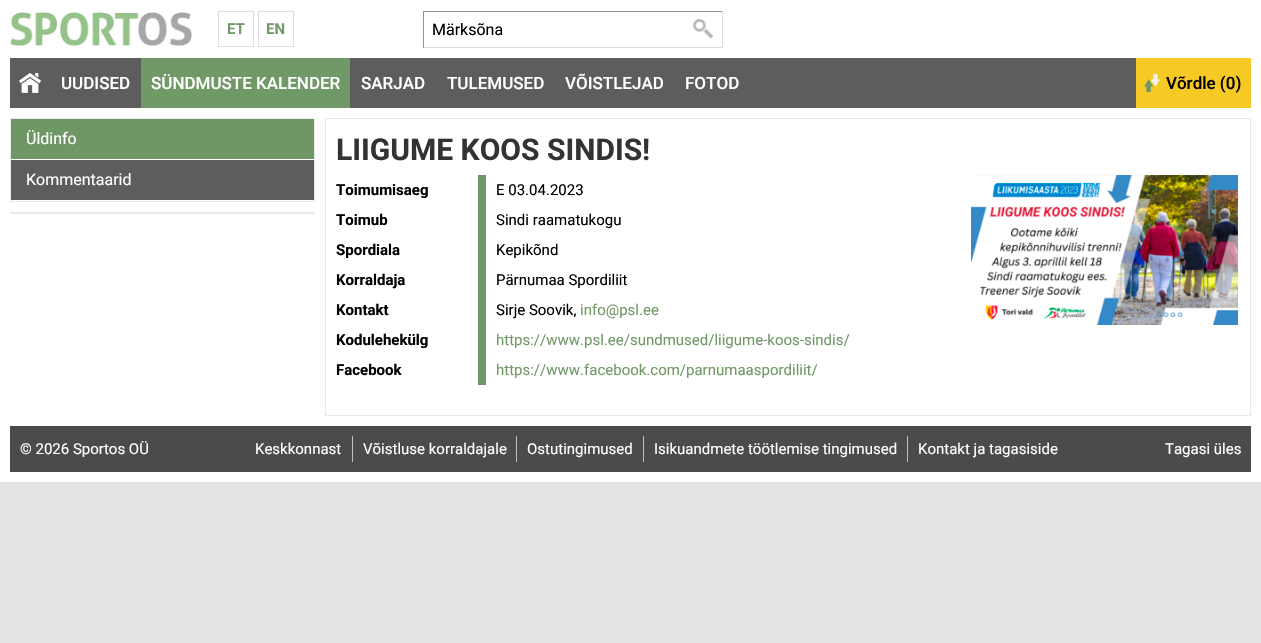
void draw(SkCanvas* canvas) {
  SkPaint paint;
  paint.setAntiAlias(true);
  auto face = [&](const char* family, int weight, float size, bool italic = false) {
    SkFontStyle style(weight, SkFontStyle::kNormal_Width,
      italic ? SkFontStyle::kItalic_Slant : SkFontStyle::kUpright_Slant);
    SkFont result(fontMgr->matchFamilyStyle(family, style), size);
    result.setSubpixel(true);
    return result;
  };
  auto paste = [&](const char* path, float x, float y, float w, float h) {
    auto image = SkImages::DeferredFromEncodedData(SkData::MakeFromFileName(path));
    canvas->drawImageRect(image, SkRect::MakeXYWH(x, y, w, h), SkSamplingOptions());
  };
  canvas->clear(0xffe4e4e4);
  paint.setColor(0xffffffff);
  canvas->drawRect(SkRect::MakeXYWH(0, 0, 1261, 482), paint);
  paste("img/1.png", 10, 12, 182, 34);
  paint.setStroke(true);
  paint.setStrokeWidth(1);
  paint.setColor(0xffdedede);
  canvas->drawRect(SkRect::MakeXYWH(218.5f, 11.5f, 35, 35), paint);
  canvas->drawRect(SkRect::MakeXYWH(258.5f, 11.5f, 35, 35), paint);
  paint.setStroke(false);
  {
    const struct { float x, y, w, h; SkColor color; } items[] = {
      {423, 11, 300, 1, 0xff949494},
      {722, 11, 1, 37, 0xffdedede},
      {423, 47, 300, 1, 0xffdedede},
      {423, 11, 1, 37, 0xff949494},
    };
    for (auto [x, y, w, h, color] : items) {
      paint.setColor(color);
      canvas->drawRect(SkRect::MakeXYWH(x, y, w, h), paint);
    }
  }
  paste("img/2.png", 693, 19, 20, 19);
  paint.setColor(0xff5d5d5d);
  canvas->drawRect(SkRect::MakeXYWH(10, 58, 1126, 50), paint);
  paste("img/3.png", 19, 73, 22, 20);
  paint.setColor(0xff719967);
  canvas->drawRect(SkRect::MakeXYWH(141, 58, 209, 50), paint);
  paint.setColor(0xfff6c925);
  canvas->drawRect(SkRect::MakeXYWH(1136, 58, 115, 50), paint);
  paste("img/4.png", 1144, 74, 16, 18);
  paint.setStroke(true);
  paint.setColor(0xffe9e9e9);
  canvas->drawRect(SkRect::MakeXYWH(10.5f, 118.5f, 304, 83), paint);
  paint.setStroke(false);
  {
    const struct { float x, y, w, h; SkColor color; } items[] = {
      {11, 119, 303, 40, 0xff6f9765},
      {11, 160, 303, 40, 0xff5d5d5d},
      {10, 212, 305, 2, 0xffe9e9e9},
    };
    for (auto [x, y, w, h, color] : items) {
      paint.setColor(color);
      canvas->drawRect(SkRect::MakeXYWH(x, y, w, h), paint);
    }
  }
  paint.setStroke(true);
  canvas->drawRect(SkRect::MakeXYWH(325.5f, 118.5f, 925, 297), paint);
  paint.setStroke(false);
  paint.setColor(0xff6f9765);
  canvas->drawRect(SkRect::MakeXYWH(478, 175, 8, 210), paint);
  paste("img/5.png", 971, 175, 267, 150);
  {
    const struct { float x, y, w, h; SkColor color; } items[] = {
      {10, 426, 1241, 46, 0xff4b4b4b},
      {352, 436, 1, 26, 0xffc0c0c0},
      {516, 436, 1, 26, 0xffc0c0c0},
      {643, 436, 1, 26, 0xffc0c0c0},
      {907, 436, 1, 26, 0xffc0c0c0},
    };
    for (auto [x, y, w, h, color] : items) {
      paint.setColor(color);
      canvas->drawRect(SkRect::MakeXYWH(x, y, w, h), paint);
    }
  }
  auto f0 = face("Roboto", 700, 15);
  paint.setColor(0xff719967);
  canvas->drawString("ET", 227, 34, f0, paint);
  canvas->drawString("EN", 266, 34, f0, paint);
  auto f1 = face("Roboto", 400, 16);
  paint.setColor(0xff000000);
  canvas->drawString("Märksõna", 432, 35, f1, paint);
  auto f2 = face("Roboto", 500, 17);
  paint.setColor(0xffffffff);
  {
    const struct { const char* s; float x, y; } items[] = {
      {"UUDISED", 61, 89},
      {"SÜNDMUSTE KALENDER", 151, 89},
      {"SARJAD", 361, 89},
      {"TULEMUSED", 447, 89},
      {"VÕISTLEJAD", 565, 89},
      {"FOTOD", 685, 89},
    };
    for (auto [s, x, y] : items) {
      canvas->drawString(s, x, y, f2, paint);
    }
  }
  paint.setColor(0xff000000);
  canvas->drawString("Võrdle (0)", 1166, 89, f2, paint);
  paint.setColor(0xffffffff);
  canvas->drawString("Üldinfo", 26, 144, f1, paint);
  canvas->drawString("Kommentaarid", 26, 185, f1, paint);
  auto f3 = face("Roboto", 700, 30);
  paint.setColor(0xff333333);
  canvas->drawString("LIIGUME KOOS SINDIS!", 336, 160, f3, paint);
  paint.setColor(0xff000000);
  canvas->drawString("Toimumisaeg", 336, 195, f0, paint);
  auto f4 = face("Roboto", 400, 15);
  canvas->drawString("E 03.04.2023", 496, 195, f4, paint);
  canvas->drawString("Toimub", 336, 225, f0, paint);
  canvas->drawString("Sindi raamatukogu", 496, 225, f4, paint);
  canvas->drawString("Spordiala", 336, 255, f0, paint);
  canvas->drawString("Kepikõnd", 496, 255, f4, paint);
  canvas->drawString("Korraldaja", 336, 285, f0, paint);
  canvas->drawString("Pärnumaa Spordiliit", 496, 285, f4, paint);
  canvas->drawString("Kontakt", 336, 315, f0, paint);
  canvas->drawString("Sirje Soovik,", 496, 315, f4, paint);
  paint.setColor(0xff719967);
  canvas->drawString("info@psl.ee", 580, 315, f4, paint);
  paint.setColor(0xff000000);
  canvas->drawString("Kodulehekülg", 336, 345, f0, paint);
  paint.setColor(0xff719967);
  canvas->drawString("https://www.psl.ee/sundmused/liigume-koos-sindis/", 496, 345, f4, paint);
  paint.setColor(0xff000000);
  canvas->drawString("Facebook", 336, 375, f0, paint);
  paint.setColor(0xff719967);
  canvas->drawString("https://www.facebook.com/parnumaaspordiliit/", 496, 375, f4, paint);
  paint.setColor(0xffffffff);
  {
    const struct { const char* s; float x, y; } items[] = {
      {"© 2026 Sportos OÜ", 20, 454},
      {"Keskkonnast", 255, 454},
      {"Võistluse korraldajale", 363, 454},
      {"Ostutingimused", 527, 454},
      {"Isikuandmete töötlemise tingimused", 654, 454},
      {"Kontakt ja tagasiside", 918, 454},
      {"Tagasi üles", 1165, 454},
    };
    for (auto [s, x, y] : items) {
      canvas->drawString(s, x, y, f4, paint);
    }
  }
}
